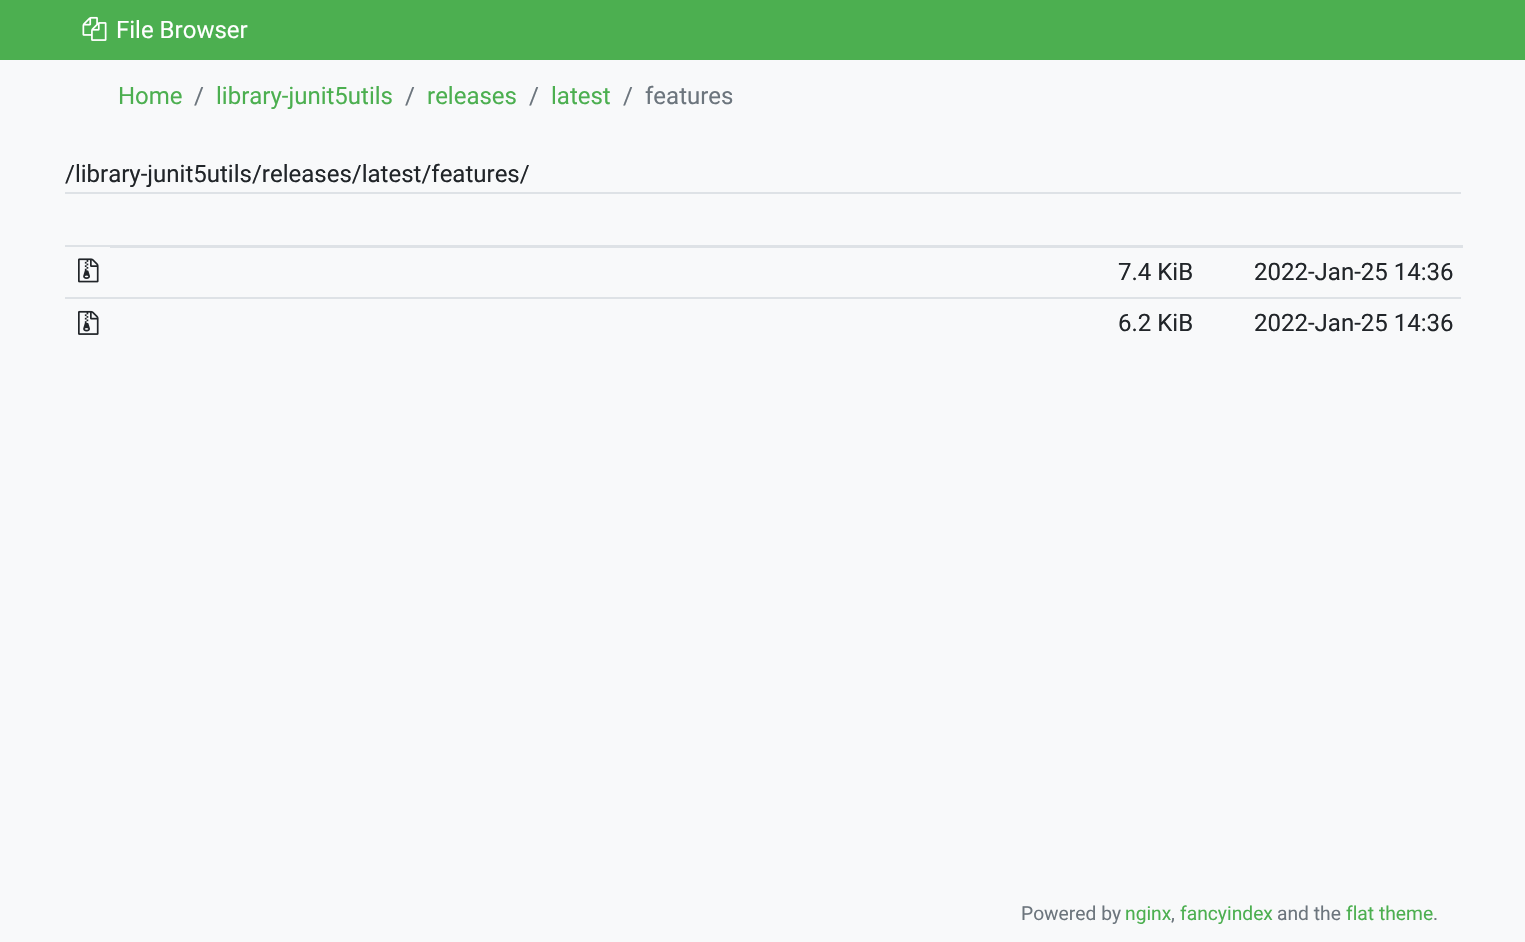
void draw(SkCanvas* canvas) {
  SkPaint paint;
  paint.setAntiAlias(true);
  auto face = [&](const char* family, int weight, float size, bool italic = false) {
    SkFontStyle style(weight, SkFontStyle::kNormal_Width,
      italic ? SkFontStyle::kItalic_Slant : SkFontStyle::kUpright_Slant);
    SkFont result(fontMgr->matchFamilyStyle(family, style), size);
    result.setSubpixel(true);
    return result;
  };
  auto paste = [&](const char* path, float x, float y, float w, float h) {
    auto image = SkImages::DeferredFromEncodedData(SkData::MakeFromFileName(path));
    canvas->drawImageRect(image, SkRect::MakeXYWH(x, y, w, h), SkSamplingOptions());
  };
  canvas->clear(0xfff8f9fa);
  paint.setColor(0xff4caf50);
  canvas->drawRect(SkRect::MakeXYWH(0, 0, 1525, 60), paint);
  paste("img/1.png", 82, 16, 25, 25);
  {
    const struct { float x, y, w, h; SkColor color; } items[] = {
      {65, 192, 1396, 2, 0xffdee2e6},
      {65, 245, 46, 2, 0xffdee2e6},
      {110, 245, 1353, 3, 0xffdee2e6},
    };
    for (auto [x, y, w, h, color] : items) {
      paint.setColor(color);
      canvas->drawRect(SkRect::MakeXYWH(x, y, w, h), paint);
    }
  }
  paste("img/2.png", 78, 258, 21, 25);
  paste("img/3.png", 78, 310, 21, 25);
  canvas->drawRect(SkRect::MakeXYWH(65, 297, 1396, 2), paint);
  auto f0 = face("Roboto", 400, 24);
  paint.setColor(0xffffffff);
  canvas->drawString("File Browser", 116, 38, f0, paint);
  paint.setColor(0xff4caf50);
  canvas->drawString("Home", 118, 104, f0, paint);
  paint.setColor(0xff6c757d);
  canvas->drawString("/", 194, 104, f0, paint);
  paint.setColor(0xff4caf50);
  canvas->drawString("library-junit5utils", 216, 104, f0, paint);
  paint.setColor(0xff6c757d);
  canvas->drawString("/", 405, 104, f0, paint);
  paint.setColor(0xff4caf50);
  canvas->drawString("releases", 427, 104, f0, paint);
  paint.setColor(0xff6c757d);
  canvas->drawString("/", 529, 104, f0, paint);
  paint.setColor(0xff4caf50);
  canvas->drawString("latest", 551, 104, f0, paint);
  paint.setColor(0xff6c757d);
  canvas->drawString("/", 623, 104, f0, paint);
  canvas->drawString("features", 645, 104, f0, paint);
  paint.setColor(0xff212529);
  {
    const struct { const char* s; float x, y; } items[] = {
      {"/library-junit5utils/releases/latest/features/", 65, 182},
      {"7.4 KiB", 1118, 280},
      {"2022-Jan-25 14:36", 1254, 280},
      {"6.2 KiB", 1118, 331},
      {"2022-Jan-25 14:36", 1254, 331},
    };
    for (auto [s, x, y] : items) {
      canvas->drawString(s, x, y, f0, paint);
    }
  }
  auto f1 = face("Roboto", 400, 19.25f);
  paint.setColor(0xff6c757d);
  canvas->drawString("Powered by", 1021, 920, f1, paint);
  paint.setColor(0xff4caf50);
  canvas->drawString("nginx", 1125, 920, f1, paint);
  paint.setColor(0xff6c757d);
  canvas->drawString(",", 1171, 920, f1, paint);
  paint.setColor(0xff4caf50);
  canvas->drawString("fancyindex", 1180, 920, f1, paint);
  paint.setColor(0xff6c757d);
  canvas->drawString("and the", 1277, 920, f1, paint);
  paint.setColor(0xff4caf50);
  canvas->drawString("flat theme", 1346, 920, f1, paint);
  paint.setColor(0xff6c757d);
  canvas->drawString(".", 1433, 920, f1, paint);
}
